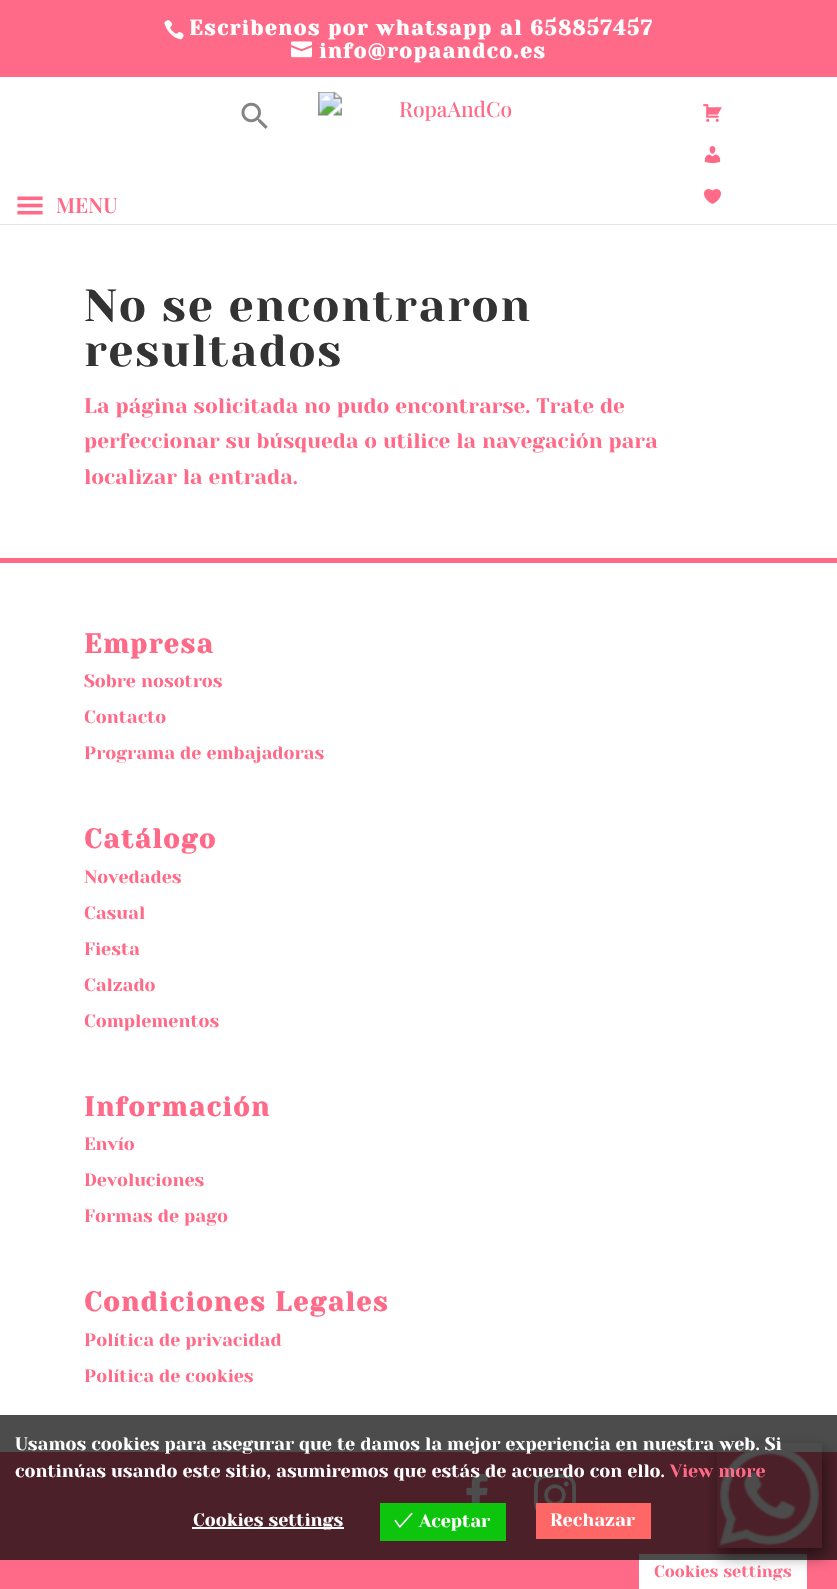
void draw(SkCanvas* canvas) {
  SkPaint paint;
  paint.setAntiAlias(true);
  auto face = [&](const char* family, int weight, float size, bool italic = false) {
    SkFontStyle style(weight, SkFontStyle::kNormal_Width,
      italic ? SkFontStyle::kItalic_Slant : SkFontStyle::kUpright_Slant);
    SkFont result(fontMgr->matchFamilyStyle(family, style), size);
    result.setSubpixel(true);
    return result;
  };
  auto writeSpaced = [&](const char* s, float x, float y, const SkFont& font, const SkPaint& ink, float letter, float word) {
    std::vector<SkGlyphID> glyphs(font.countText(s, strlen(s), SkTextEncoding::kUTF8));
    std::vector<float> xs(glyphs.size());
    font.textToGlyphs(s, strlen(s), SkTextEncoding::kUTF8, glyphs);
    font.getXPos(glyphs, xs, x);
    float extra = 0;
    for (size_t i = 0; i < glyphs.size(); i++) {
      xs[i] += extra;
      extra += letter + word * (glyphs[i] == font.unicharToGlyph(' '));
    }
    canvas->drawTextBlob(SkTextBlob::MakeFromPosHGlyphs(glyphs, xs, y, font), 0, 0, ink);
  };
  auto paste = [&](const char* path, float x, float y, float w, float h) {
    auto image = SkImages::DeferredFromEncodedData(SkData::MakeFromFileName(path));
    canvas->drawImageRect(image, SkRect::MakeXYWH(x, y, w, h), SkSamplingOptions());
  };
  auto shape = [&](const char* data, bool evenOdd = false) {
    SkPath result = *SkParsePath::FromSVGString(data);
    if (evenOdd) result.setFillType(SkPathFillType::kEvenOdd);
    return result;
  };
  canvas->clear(0xffffffff);
  paint.setColor(0xffff6a88);
  canvas->drawRect(SkRect::MakeXYWH(0, 0, 837, 77), paint);
  paste("img/1.png", 164, 20, 20, 20);
  paste("img/2.png", 291, 41, 21, 17);
  paint.setColor(0xffe6e6e6);
  canvas->drawRect(SkRect::MakeXYWH(0, 224, 837, 1), paint);
  paste("img/3.png", 318, 92, 194, 29);
  paste("img/4.png", 241, 102, 27, 27);
  paste("img/5.png", 703, 104, 19, 18);
  paste("img/6.png", 704, 146, 17, 18);
  paste("img/7.png", 704, 189, 17, 15);
  paste("img/8.png", 17, 196, 26, 19);
  paint.setColor(0xffff6a88);
  canvas->drawRect(SkRect::MakeXYWH(0, 558, 837, 5), paint);
  canvas->drawRect(SkRect::MakeXYWH(0, 1452, 837, 137), paint);
  paste("img/9.png", 466, 1474, 22, 29);
  paste("img/10.png", 534, 1474, 42, 37);
  paint.setColor(0xffffffff);
  canvas->drawRect(SkRect::MakeXYWH(639, 1554, 168, 35), paint);
  canvas->save();
  canvas->clipPath(shape("M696 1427H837V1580H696ZM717 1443H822V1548H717Z", true), true);
  paint.setColor(0x80000000);
  paint.setMaskFilter(SkMaskFilter::MakeBlur(kNormal_SkBlurStyle, 7.5f));
  canvas->drawRect(SkRect::MakeXYWH(720, 1451, 105, 105), paint);
  paint.setMaskFilter(nullptr);
  canvas->restore();
  paste("img/11.png", 718, 1445, 102, 102);
  {
    const struct { float x, y, w, h; SkColor color; } items[] = {
      {0, 1415, 837, 145, 0xb3000000},
      {192, 1527, 152, 2, 0xffffffff},
      {380, 1503, 126, 38, 0xff0ec50e},
    };
    for (auto [x, y, w, h, color] : items) {
      paint.setColor(color);
      canvas->drawRect(SkRect::MakeXYWH(x, y, w, h), paint);
    }
  }
  paste("img/12.png", 394, 1512, 19, 16);
  paint.setColor(0xffff6666);
  canvas->drawRect(SkRect::MakeXYWH(536, 1503, 115, 36), paint);
  auto f0 = face("Yeseva One", 700, 21);
  paint.setColor(0xffffffff);
  writeSpaced("Escribenos por whatsapp al 658857457", 189, 35, f0, paint, 1.5f, 0);
  writeSpaced("info@ropaandco.es", 319, 58, f0, paint, 1.5f, 0);
  auto f1 = face("Playfair Display", 600, 21);
  paint.setColor(0xffff6a88);
  canvas->drawString("MENU", 56, 213, f1, paint);
  auto f2 = face("Yeseva One", 400, 45);
  paint.setColor(0xff333333);
  writeSpaced("No se encontraron", 84, 321, f2, paint, 1.5f, 0);
  writeSpaced("resultados", 84, 366, f2, paint, 1.5f, 0);
  auto f3 = face("Yeseva One", 400, 21);
  paint.setColor(0xffff6a88);
  {
    const struct { const char* s; float x, y; } items[] = {
      {"La página solicitada no pudo encontrarse. Trate de", 84, 413},
      {"perfeccionar su búsqueda o utilice la navegación para", 84, 448},
      {"localizar la entrada.", 84, 484},
    };
    for (auto [s, x, y] : items) {
      canvas->drawString(s, x, y, f3, paint);
    }
  }
  auto f4 = face("Yeseva One", 700, 27);
  writeSpaced("Empresa", 84, 653, f4, paint, 1.5f, 0);
  auto f5 = face("Yeseva One", 400, 18);
  {
    const struct { const char* s; float x, y; } items[] = {
      {"Sobre nosotros", 84, 687},
      {"Contacto", 84, 723},
      {"Programa de embajadoras", 84, 759},
    };
    for (auto [s, x, y] : items) {
      canvas->drawString(s, x, y, f5, paint);
    }
  }
  writeSpaced("Catálogo", 84, 848, f4, paint, 1.5f, 0);
  {
    const struct { const char* s; float x, y; } items[] = {
      {"Novedades", 84, 883},
      {"Casual", 84, 919},
      {"Fiesta", 84, 955},
      {"Calzado", 84, 991},
      {"Complementos", 84, 1027},
    };
    for (auto [s, x, y] : items) {
      canvas->drawString(s, x, y, f5, paint);
    }
  }
  writeSpaced("Información", 84, 1116, f4, paint, 1.5f, 0);
  {
    const struct { const char* s; float x, y; } items[] = {
      {"Envío", 84, 1150},
      {"Devoluciones", 84, 1186},
      {"Formas de pago", 84, 1222},
    };
    for (auto [s, x, y] : items) {
      canvas->drawString(s, x, y, f5, paint);
    }
  }
  writeSpaced("Condiciones Legales", 84, 1311, f4, paint, 1.5f, 0);
  canvas->drawString("Política de privacidad", 84, 1346, f5, paint);
  canvas->drawString("Política de cookies", 84, 1382, f5, paint);
  paint.setColor(0xffffffff);
  canvas->drawString("Usamos cookies para asegurar que te damos la mejor experiencia en nuestra web. Si", 15, 1450, f5, paint);
  canvas->drawString("continúas usando este sitio, asumiremos que estás de acuerdo con ello.", 15, 1477, f5, paint);
  paint.setColor(0xffff6a88);
  canvas->drawString("View more", 670, 1477, f5, paint);
  paint.setColor(0xffffffff);
  {
    const struct { const char* s; float x, y; } items[] = {
      {"Cookies settings", 193, 1526},
      {"Aceptar", 419, 1527},
      {"Rechazar", 550, 1526},
    };
    for (auto [s, x, y] : items) {
      canvas->drawString(s, x, y, f5, paint);
    }
  }
  auto f6 = face("Yeseva One", 400, 16.5f);
  paint.setColor(0xffff6a88);
  canvas->drawString("Cookies settings", 654, 1577, f6, paint);
}
